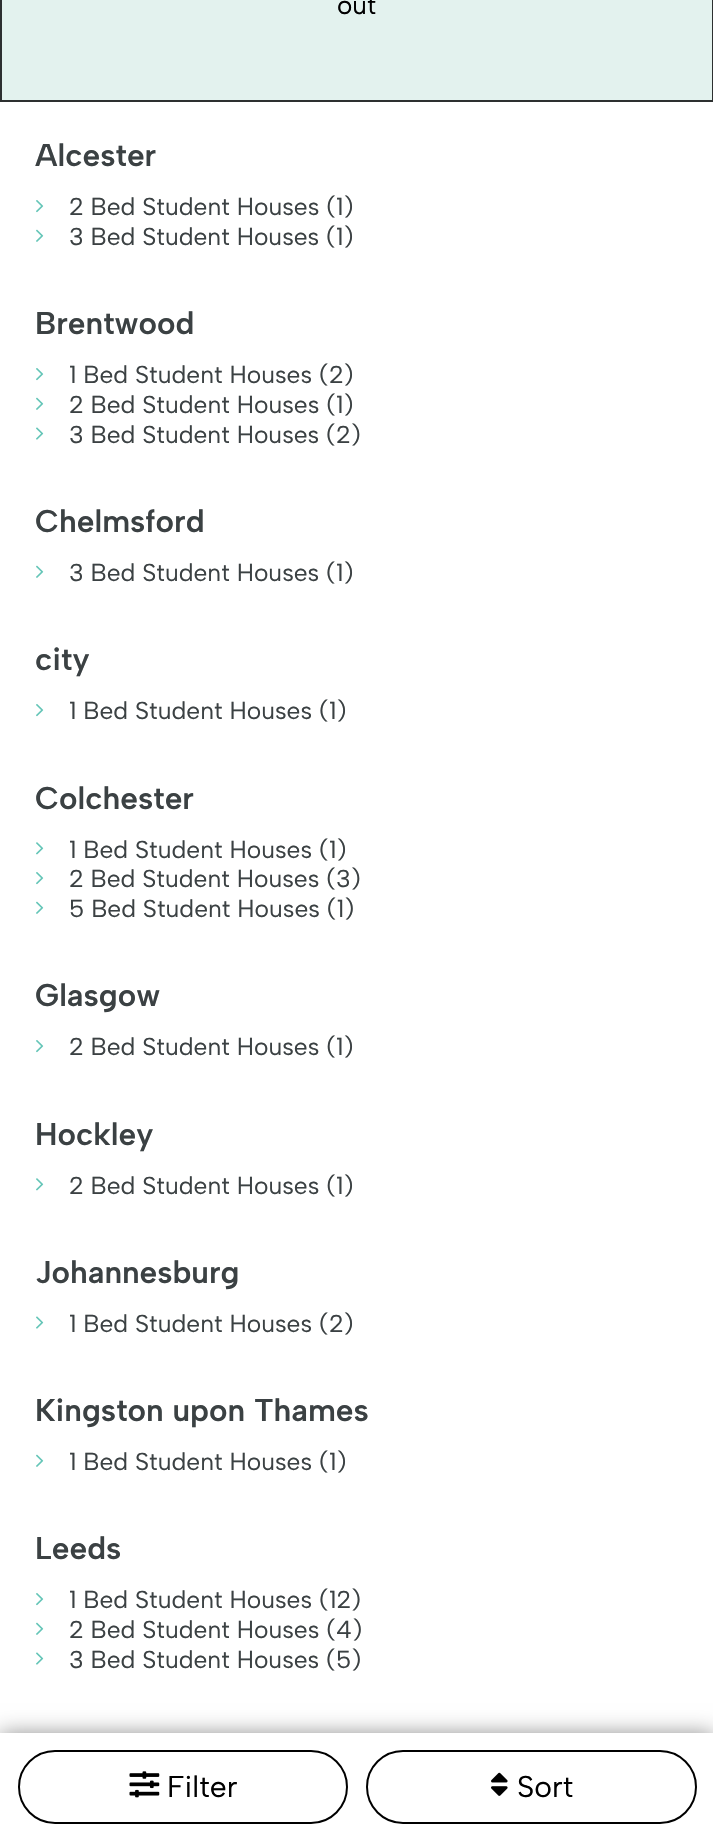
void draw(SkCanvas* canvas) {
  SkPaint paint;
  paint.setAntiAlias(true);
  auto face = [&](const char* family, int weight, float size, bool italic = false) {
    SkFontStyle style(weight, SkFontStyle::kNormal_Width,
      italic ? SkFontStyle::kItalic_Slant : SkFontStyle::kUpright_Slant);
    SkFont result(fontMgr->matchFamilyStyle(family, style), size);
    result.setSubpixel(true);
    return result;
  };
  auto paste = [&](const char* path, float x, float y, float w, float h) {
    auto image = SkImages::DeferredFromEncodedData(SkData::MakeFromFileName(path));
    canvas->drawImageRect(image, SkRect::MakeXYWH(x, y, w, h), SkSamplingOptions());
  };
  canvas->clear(0xffffffff);
  paint.setColor(0xffe3f2ee);
  canvas->drawRect(SkRect::MakeXYWH(1, -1, 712, 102), paint);
  paint.setStroke(true);
  paint.setStrokeWidth(2);
  paint.setColor(0xff2d3030);
  canvas->drawRect(SkRect::MakeXYWH(1, -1, 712, 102), paint);
  paste("img/1.png", 36, 200, 8, 13);
  paste("img/2.png", 36, 229, 8, 13);
  paste("img/1.png", 36, 368, 8, 13);
  paste("img/2.png", 36, 397, 8, 13);
  paste("img/3.png", 36, 427, 8, 13);
  paste("img/2.png", 36, 565, 8, 13);
  paste("img/1.png", 36, 704, 8, 13);
  paste("img/4.png", 36, 842, 8, 13);
  paste("img/1.png", 36, 872, 8, 13);
  paste("img/2.png", 36, 901, 8, 13);
  paste("img/1.png", 36, 1040, 8, 13);
  paste("img/4.png", 36, 1178, 8, 13);
  paste("img/3.png", 36, 1316, 8, 13);
  paste("img/2.png", 36, 1454, 8, 13);
  paste("img/1.png", 36, 1593, 8, 13);
  paste("img/2.png", 36, 1622, 8, 13);
  paste("img/3.png", 36, 1652, 8, 13);
  paint.setStroke(false);
  paint.setColor(0x75000000);
  paint.setMaskFilter(SkMaskFilter::MakeBlur(kNormal_SkBlurStyle, 10.5f));
  canvas->drawRect(SkRect::MakeXYWH(0, 1734, 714, 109), paint);
  paint.setMaskFilter(nullptr);
  paint.setColor(0xffffffff);
  canvas->drawRect(SkRect::MakeXYWH(0, 1733, 713, 107), paint);
  paint.setStroke(true);
  paint.setColor(0xff000000);
  canvas->drawRoundRect(SkRect::MakeXYWH(19, 1751, 328, 72), 36, 36, paint);
  paste("img/5.png", 129, 1771, 31, 27);
  canvas->drawRoundRect(SkRect::MakeXYWH(367, 1751, 329, 72), 36, 36, paint);
  paste("img/6.png", 491, 1772, 17, 24);
  auto f0 = face("Albert Sans", 400, 26);
  paint.setStroke(false);
  canvas->drawString("out", 337, 14, f0, paint);
  auto f1 = face("Albert Sans", 600, 31.5f);
  paint.setColor(0xff3b4143);
  canvas->drawString("Alcester", 35, 166, f1, paint);
  auto f2 = face("Albert Sans", 400, 24.5f);
  canvas->drawString("2 Bed Student Houses (1)", 69, 215, f2, paint);
  canvas->drawString("3 Bed Student Houses (1)", 69, 245, f2, paint);
  canvas->drawString("Brentwood", 35, 334, f1, paint);
  {
    const struct { const char* s; float x, y; } items[] = {
      {"1 Bed Student Houses (2)", 69, 383},
      {"2 Bed Student Houses (1)", 69, 413},
      {"3 Bed Student Houses (2)", 69, 443},
    };
    for (auto [s, x, y] : items) {
      canvas->drawString(s, x, y, f2, paint);
    }
  }
  canvas->drawString("Chelmsford", 35, 532, f1, paint);
  canvas->drawString("3 Bed Student Houses (1)", 69, 581, f2, paint);
  canvas->drawString("city", 35, 670, f1, paint);
  canvas->drawString("1 Bed Student Houses (1)", 69, 719, f2, paint);
  canvas->drawString("Colchester", 35, 809, f1, paint);
  {
    const struct { const char* s; float x, y; } items[] = {
      {"1 Bed Student Houses (1)", 69, 858},
      {"2 Bed Student Houses (3)", 69, 887},
      {"5 Bed Student Houses (1)", 69, 917},
    };
    for (auto [s, x, y] : items) {
      canvas->drawString(s, x, y, f2, paint);
    }
  }
  canvas->drawString("Glasgow", 35, 1006, f1, paint);
  canvas->drawString("2 Bed Student Houses (1)", 69, 1055, f2, paint);
  canvas->drawString("Hockley", 35, 1145, f1, paint);
  canvas->drawString("2 Bed Student Houses (1)", 69, 1194, f2, paint);
  canvas->drawString("Johannesburg", 35, 1283, f1, paint);
  canvas->drawString("1 Bed Student Houses (2)", 69, 1332, f2, paint);
  canvas->drawString("Kingston upon Thames", 35, 1421, f1, paint);
  canvas->drawString("1 Bed Student Houses (1)", 69, 1470, f2, paint);
  canvas->drawString("Leeds", 35, 1559, f1, paint);
  {
    const struct { const char* s; float x, y; } items[] = {
      {"1 Bed Student Houses (12)", 69, 1608},
      {"2 Bed Student Houses (4)", 69, 1638},
      {"3 Bed Student Houses (5)", 69, 1668},
    };
    for (auto [s, x, y] : items) {
      canvas->drawString(s, x, y, f2, paint);
    }
  }
  auto f3 = face("Albert Sans", 400, 30);
  paint.setColor(0xff000000);
  canvas->drawString("Filter", 167, 1797, f3, paint);
  canvas->drawString("Sort", 517, 1797, f3, paint);
}
